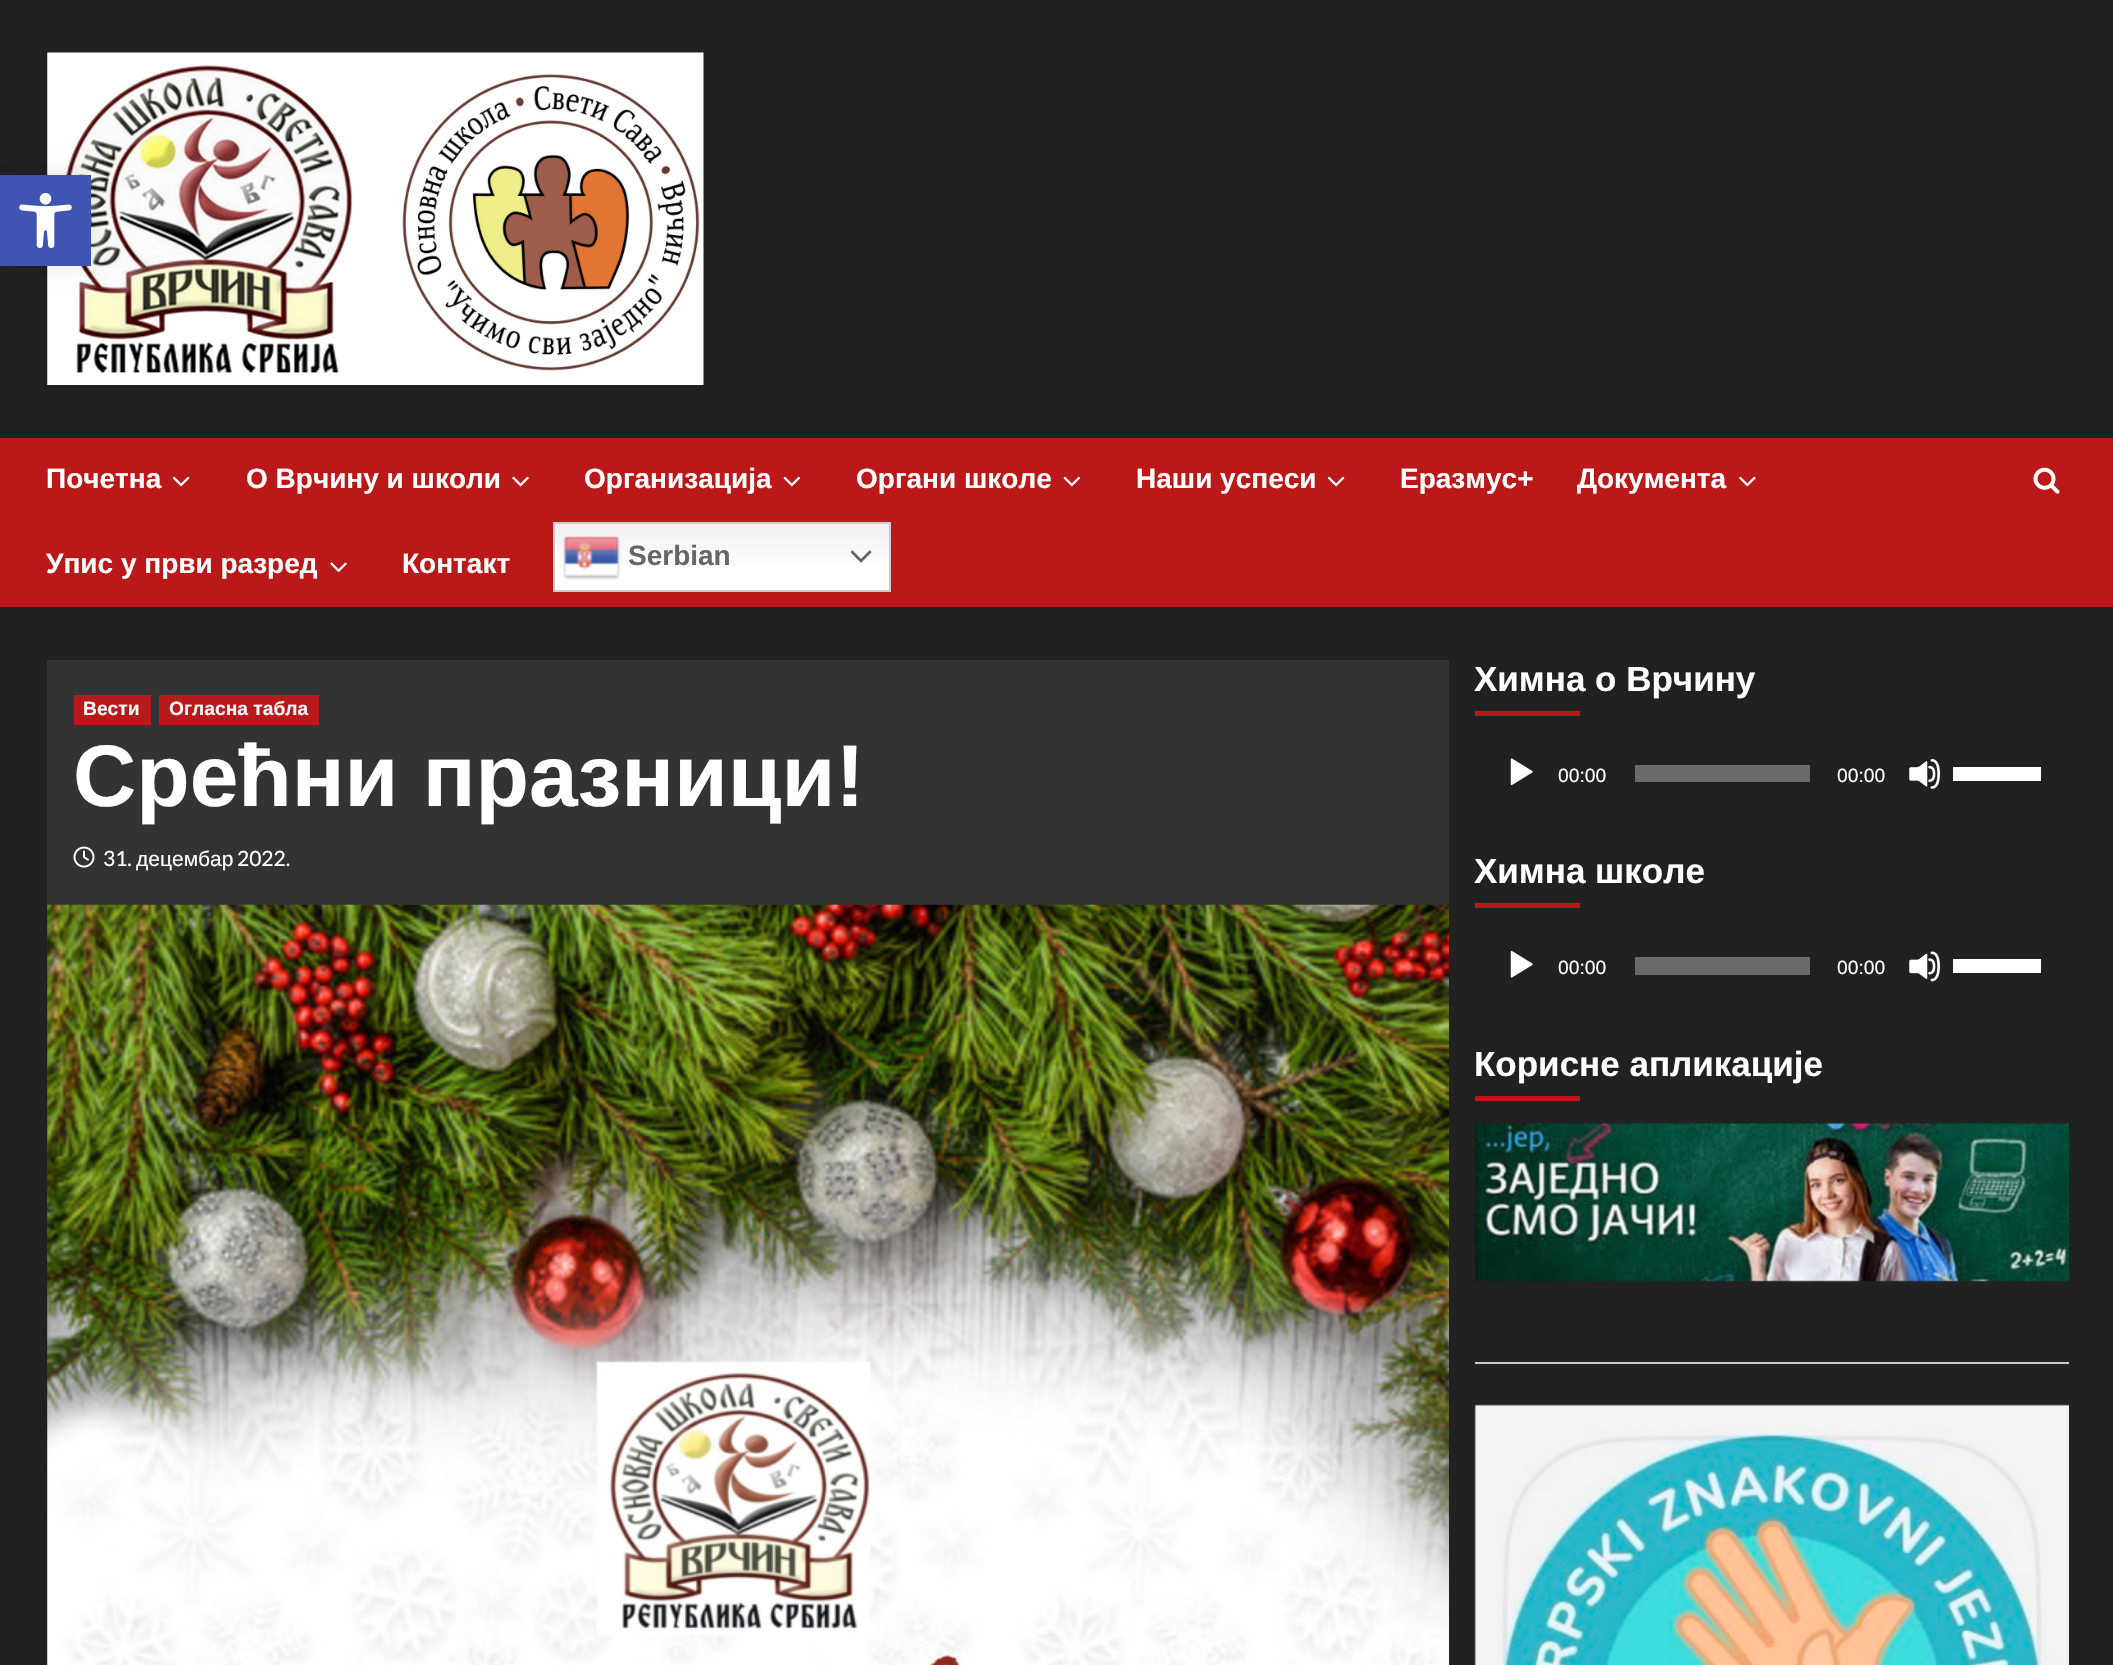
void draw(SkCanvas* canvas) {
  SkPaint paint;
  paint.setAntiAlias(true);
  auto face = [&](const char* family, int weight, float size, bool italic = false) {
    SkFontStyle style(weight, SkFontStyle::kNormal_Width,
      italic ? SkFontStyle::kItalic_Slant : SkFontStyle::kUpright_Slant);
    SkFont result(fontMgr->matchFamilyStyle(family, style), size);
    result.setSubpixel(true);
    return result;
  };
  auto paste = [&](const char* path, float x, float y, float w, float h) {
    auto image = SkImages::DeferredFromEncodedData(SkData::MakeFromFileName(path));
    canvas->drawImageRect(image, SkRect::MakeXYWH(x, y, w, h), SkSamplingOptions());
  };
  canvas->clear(0xff212121);
  paste("img/2.png", 47, 52, 657, 333);
  paint.setColor(0x1a000000);
  paint.setMaskFilter(SkMaskFilter::MakeBlur(kNormal_SkBlurStyle, 9));
  canvas->drawRect(SkRect::MakeXYWH(0, 175, 91, 91), paint);
  paint.setMaskFilter(nullptr);
  paint.setColor(0xff4054b2);
  canvas->drawRect(SkRect::MakeXYWH(0, 175, 91, 91), paint);
  paste("img/1.png", 19, 193, 53, 56);
  paint.setColor(0xffbb1919);
  canvas->drawRect(SkRect::MakeXYWH(0, 438, 2113, 169), paint);
  paste("img/3.png", 172, 476, 18, 11);
  paste("img/4.png", 512, 476, 17, 11);
  paste("img/5.png", 783, 476, 18, 11);
  paste("img/5.png", 1063, 476, 18, 11);
  paste("img/3.png", 1327, 476, 18, 11);
  paste("img/6.png", 1739, 476, 17, 11);
  paste("img/7.png", 330, 562, 17, 11);
  {
    const SkColor colors[] = {0xffefefef, 0xffffffff};
    const float stops[] = {0, 0.7f};
    const SkPoint ends[] = {{722, 522}, {722, 592}};
    paint.setShader(SkGradientShader::MakeLinear(ends, colors, stops, 2, SkTileMode::kClamp));
    paint.setAlpha(255);
  }
  canvas->drawRect(SkRect::MakeXYWH(555, 524, 334, 66), paint);
  paint.setStroke(true);
  paint.setStrokeWidth(2);
  paint.setShader(nullptr);
  paint.setColor(0xffcccccc);
  canvas->drawRect(SkRect::MakeXYWH(554, 523, 336, 68), paint);
  paste("img/8.png", 563, 536, 57, 44);
  paste("img/9.png", 851, 550, 21, 13);
  paste("img/10.png", 2033, 467, 27, 27);
  paint.setStroke(false);
  {
    const struct { float x, y, w, h; SkColor color; } items[] = {
      {47, 660, 1402, 1005, 0xff333333},
      {74, 695, 77, 30, 0xffb61a1a},
      {159, 695, 160, 30, 0xffb61a1a},
    };
    for (auto [x, y, w, h, color] : items) {
      paint.setColor(color);
      canvas->drawRect(SkRect::MakeXYWH(x, y, w, h), paint);
    }
  }
  paste("img/11.png", 73, 846, 22, 22);
  paste("img/12.png", 47, 904, 1402, 761);
  paint.setColor(0xffbb1919);
  canvas->drawRect(SkRect::MakeXYWH(1475, 711, 105, 5), paint);
  paste("img/13.png", 1510, 758, 23, 28);
  paint.setColor(0xff6a6a6a);
  canvas->drawRect(SkRect::MakeXYWH(1635, 765, 175, 17), paint);
  paste("img/14.png", 1909, 759, 31, 30);
  paint.setColor(0xffffffff);
  canvas->drawRect(SkRect::MakeXYWH(1953, 767, 88, 14), paint);
  paint.setColor(0xffbb1919);
  canvas->drawRect(SkRect::MakeXYWH(1475, 903, 105, 5), paint);
  paste("img/15.png", 1510, 950, 23, 28);
  paint.setColor(0xff6a6a6a);
  canvas->drawRect(SkRect::MakeXYWH(1635, 957, 175, 18), paint);
  paste("img/16.png", 1909, 951, 31, 31);
  paint.setColor(0xffffffff);
  canvas->drawRect(SkRect::MakeXYWH(1953, 959, 88, 14), paint);
  paint.setColor(0xffbb1919);
  canvas->drawRect(SkRect::MakeXYWH(1475, 1096, 105, 5), paint);
  paste("img/17.png", 1474, 1122, 595, 160);
  paint.setColor(0xffcccccc);
  canvas->drawRect(SkRect::MakeXYWH(1475, 1362, 594, 2), paint);
  paste("img/18.png", 1474, 1404, 595, 261);
  auto f0 = face("Liberation Sans", 700, 28);
  paint.setColor(0xffffffff);
  {
    const struct { const char* s; float x, y; } items[] = {
      {"Почетна", 46, 488},
      {"О Врчину и школи", 246, 488},
      {"Организација", 584, 488},
      {"Органи школе", 856, 488},
      {"Наши успеси", 1136, 488},
      {"Еразмус+", 1400, 488},
      {"Документа", 1577, 488},
      {"Упис у први разред", 46, 573},
      {"Контакт", 402, 573},
    };
    for (auto [s, x, y] : items) {
      canvas->drawString(s, x, y, f0, paint);
    }
  }
  paint.setColor(0xff666666);
  canvas->drawString("Serbian", 628, 565, f0, paint);
  auto f1 = face("Liberation Sans", 700, 19.25f);
  paint.setColor(0xfff7f7f7);
  canvas->drawString("Вести", 83, 715, f1, paint);
  canvas->drawString("Огласна табла", 169, 715, f1, paint);
  auto f2 = face("Liberation Sans", 700, 87.5f);
  paint.setColor(0xffffffff);
  canvas->drawString("Срећни празници!", 73, 806, f2, paint);
  auto f3 = face("Lato", 400, 21);
  canvas->drawString("31.", 103, 866, f3, paint);
  auto f4 = face("Liberation Sans", 400, 21);
  canvas->drawString("децембар", 136, 866, f4, paint);
  canvas->drawString("2022.", 237, 866, f3, paint);
  auto f5 = face("Liberation Sans", 700, 35);
  canvas->drawString("Химна о Врчину", 1474, 691, f5, paint);
  auto f6 = face("Liberation Sans", 400, 19.25f);
  canvas->drawString("00:00", 1558, 782, f6, paint);
  canvas->drawString("00:00", 1837, 782, f6, paint);
  canvas->drawString("Химна школе", 1474, 883, f5, paint);
  canvas->drawString("00:00", 1558, 974, f6, paint);
  canvas->drawString("00:00", 1837, 974, f6, paint);
  canvas->drawString("Корисне апликације", 1474, 1076, f5, paint);
}
